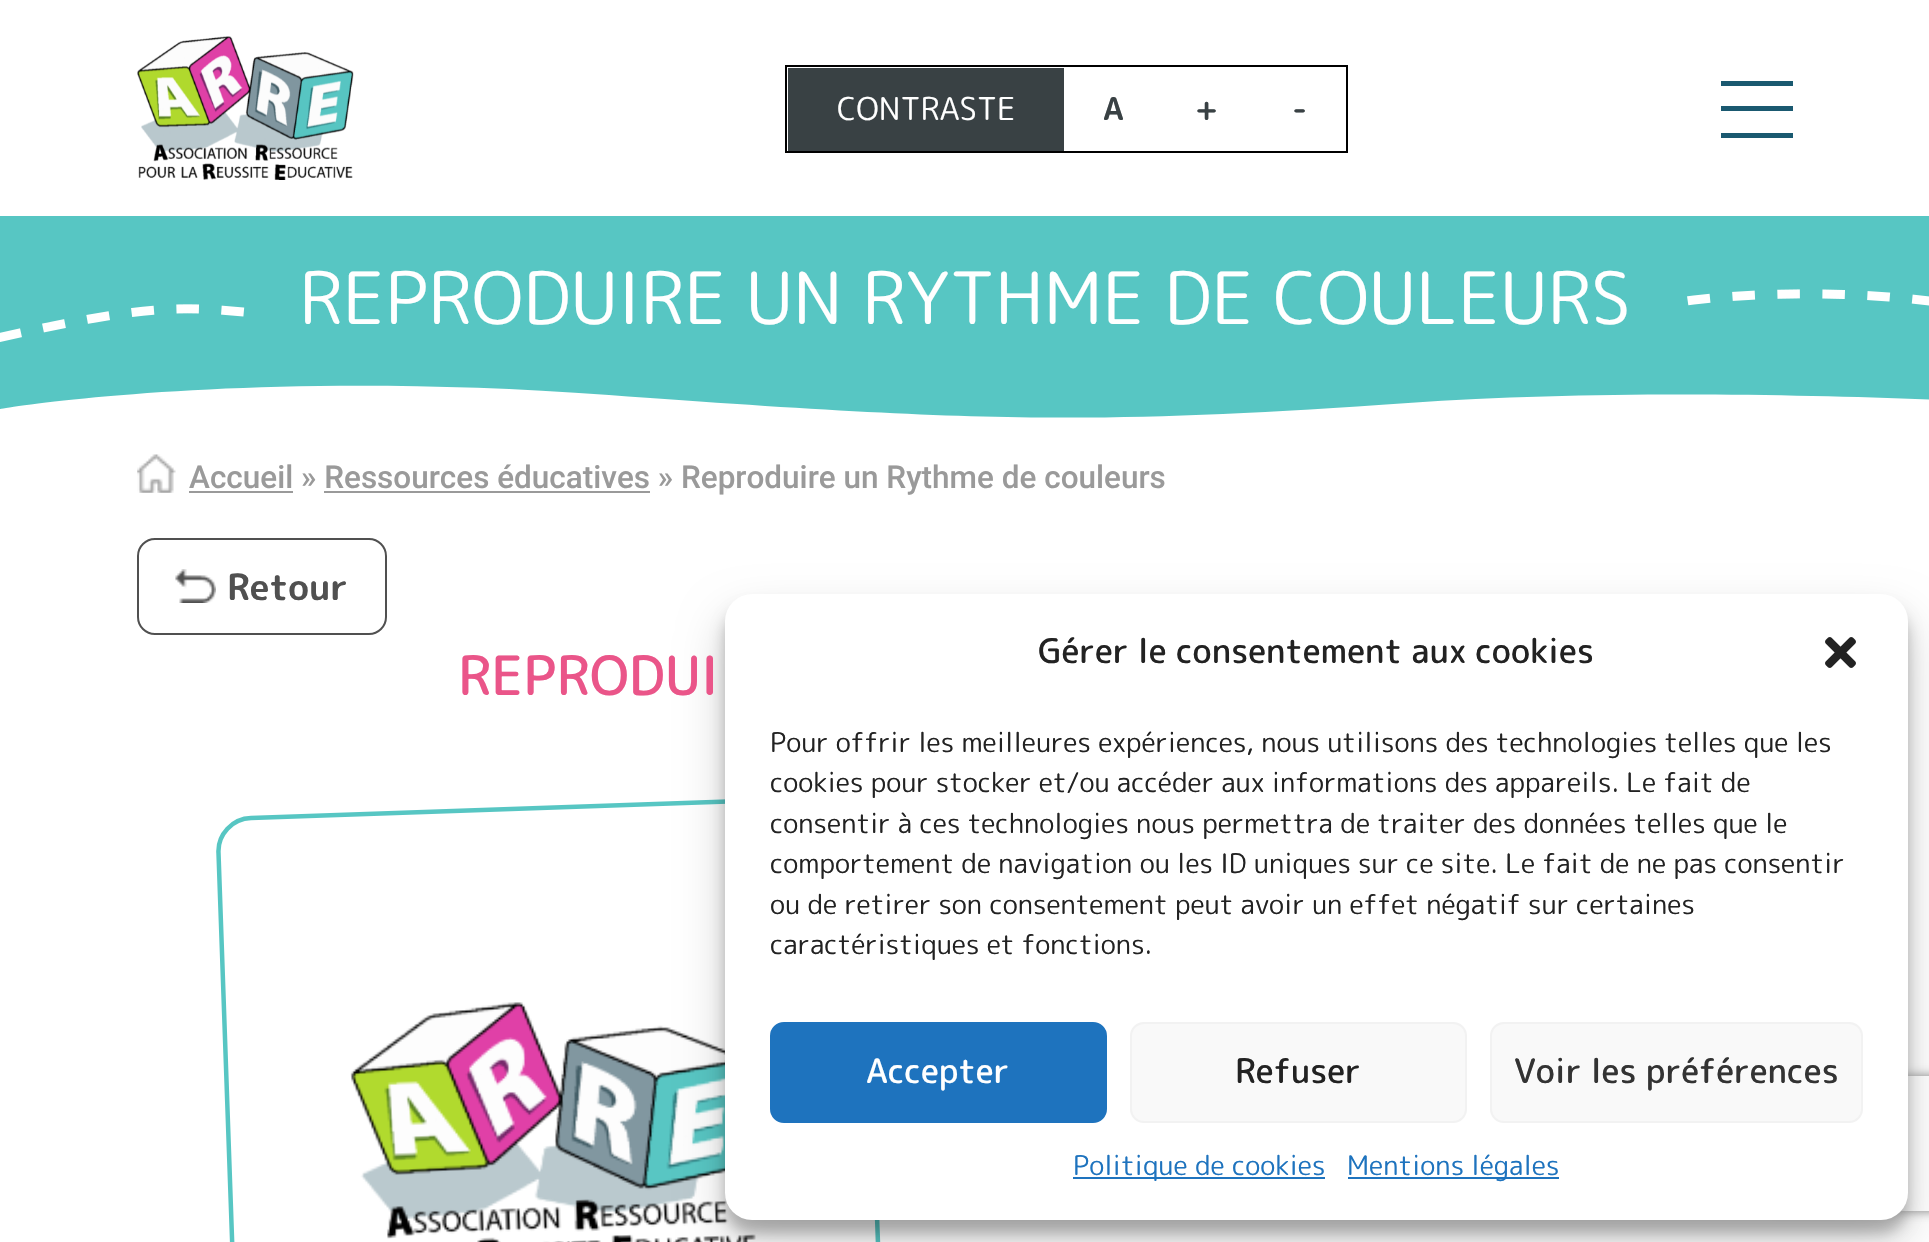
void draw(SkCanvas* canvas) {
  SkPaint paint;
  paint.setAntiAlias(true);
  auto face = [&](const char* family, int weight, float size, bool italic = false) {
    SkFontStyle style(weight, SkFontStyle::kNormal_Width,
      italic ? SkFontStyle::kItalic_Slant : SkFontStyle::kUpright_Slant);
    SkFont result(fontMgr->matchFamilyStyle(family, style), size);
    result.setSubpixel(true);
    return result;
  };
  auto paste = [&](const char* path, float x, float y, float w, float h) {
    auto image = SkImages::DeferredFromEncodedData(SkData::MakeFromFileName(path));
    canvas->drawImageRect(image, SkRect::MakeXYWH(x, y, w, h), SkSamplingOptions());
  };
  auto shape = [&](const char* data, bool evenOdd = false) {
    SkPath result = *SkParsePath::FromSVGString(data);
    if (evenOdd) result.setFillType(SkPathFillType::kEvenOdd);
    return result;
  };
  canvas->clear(0xffffffff);
  paste("img/1.png", 137, 36, 217, 144);
  paint.setStroke(true);
  paint.setStrokeWidth(2);
  paint.setColor(0xff000000);
  canvas->drawRect(SkRect::MakeXYWH(786, 66, 561, 86), paint);
  paint.setStroke(false);
  {
    const struct { float x, y, w, h; SkColor color; } items[] = {
      {788, 68, 276, 83, 0xff394144},
      {1721, 81, 72, 5, 0xff1a5970},
      {1721, 106, 72, 5, 0xff1a5970},
      {1721, 133, 72, 5, 0xff1a5970},
      {0, 216, 1929, 135, 0xff57c6c3},
    };
    for (auto [x, y, w, h, color] : items) {
      paint.setColor(color);
      canvas->drawRect(SkRect::MakeXYWH(x, y, w, h), paint);
    }
  }
  paste("img/2.png", 1687, 289, 242, 17);
  paste("img/3.png", 0, 304, 245, 38);
  canvas->drawPath(shape("M0 409C0 409 239 368 609 395C978 422 1093 425 1408 403C1723 381 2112 409 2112 409C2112 409 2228 424 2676 403C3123 381 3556 418 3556 418V351H0Z"), paint);
  paste("img/4.png", 137, 454, 39, 39);
  paint.setColor(0xff9a9a9a);
  canvas->drawRect(SkRect::MakeXYWH(189, 491, 104, 2), paint);
  canvas->drawRect(SkRect::MakeXYWH(324, 491, 326, 2), paint);
  paint.setStroke(true);
  paint.setColor(0xff505050);
  canvas->drawRoundRect(SkRect::MakeXYWH(138, 539, 248, 95), 17, 17, paint);
  paste("img/5.png", 175, 569, 41, 34);
  paint.setStrokeWidth(4.5f);
  paint.setColor(0xff57c6c3);
  canvas->drawPath(shape("M251 818L829 798C847.5 797 863 812 863.5 830.5L884 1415C885 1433.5 870 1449.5 851.5 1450L273.5 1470C255 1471 239.5 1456 239 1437.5L218.5 853C217.5 834.5 232.5 818.5 251 818Z"), paint);
  paste("img/6.png", 350, 1002, 406, 240);
  paint.setStroke(false);
  paint.setColor(0x3b000000);
  paint.setMaskFilter(SkMaskFilter::MakeBlur(kNormal_SkBlurStyle, 7));
  canvas->drawRoundRect(SkRect::MakeXYWH(725, 608, 1183, 625), 27, 27, paint);
  paint.setMaskFilter(nullptr);
  paint.setColor(0x30000000);
  paint.setMaskFilter(SkMaskFilter::MakeBlur(kNormal_SkBlurStyle, 22.5f));
  canvas->drawRoundRect(SkRect::MakeXYWH(725, 617, 1183, 625), 27, 27, paint);
  paint.setMaskFilter(nullptr);
  canvas->save();
  canvas->clipPath(shape("M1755 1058H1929V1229H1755ZM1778 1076H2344C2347 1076 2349 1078 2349 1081V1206C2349 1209 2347 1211 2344 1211H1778C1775 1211 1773 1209 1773 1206V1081C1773 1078 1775 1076 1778 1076Z", true), true);
  paint.setColor(0xff808080);
  paint.setMaskFilter(SkMaskFilter::MakeBlur(kNormal_SkBlurStyle, 5.5f));
  canvas->drawRoundRect(SkRect::MakeXYWH(1773, 1076, 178, 135), 5, 5, paint);
  paint.setMaskFilter(nullptr);
  canvas->restore();
  paint.setColor(0xffffffff);
  canvas->drawRoundRect(SkRect::MakeXYWH(725, 594, 1183, 626), 27, 27, paint);
  paste("img/7.png", 1825, 637, 31, 31);
  paint.setColor(0xff1e73be);
  canvas->drawRoundRect(SkRect::MakeXYWH(771, 1023, 335, 99), 13, 13, paint);
  paint.setStroke(true);
  paint.setStrokeWidth(2);
  canvas->drawRoundRect(SkRect::MakeXYWH(771, 1023, 335, 99), 13, 13, paint);
  paint.setStroke(false);
  paint.setColor(0xfff9f9f9);
  canvas->drawRoundRect(SkRect::MakeXYWH(1131, 1023, 335, 99), 13, 13, paint);
  paint.setStroke(true);
  paint.setColor(0xfff2f2f2);
  canvas->drawRoundRect(SkRect::MakeXYWH(1131, 1023, 335, 99), 13, 13, paint);
  paint.setStroke(false);
  paint.setColor(0xfff9f9f9);
  canvas->drawRoundRect(SkRect::MakeXYWH(1491, 1023, 371, 99), 13, 13, paint);
  paint.setStroke(true);
  paint.setColor(0xfff2f2f2);
  canvas->drawRoundRect(SkRect::MakeXYWH(1491, 1023, 371, 99), 13, 13, paint);
  paint.setStroke(false);
  paint.setColor(0xff1e73be);
  canvas->drawRect(SkRect::MakeXYWH(1073, 1177, 252, 2), paint);
  canvas->drawRect(SkRect::MakeXYWH(1348, 1177, 211, 2), paint);
  auto f0 = face("Rounded Mplus 1c", 400, 31.5f);
  paint.setColor(0xffffffff);
  canvas->drawString("CONTRASTE", 837, 120, f0, paint);
  auto f1 = face("Rounded Mplus 1c Bold", 700, 31.5f);
  paint.setColor(0xff394144);
  {
    const struct { const char* s; float x, y; } items[] = {
      {"A", 1103, 120},
      {"+", 1195, 120},
      {"-", 1292, 120},
    };
    for (auto [s, x, y] : items) {
      canvas->drawString(s, x, y, f1, paint);
    }
  }
  auto f2 = face("Rounded Mplus 1c", 400, 72);
  paint.setColor(0xffffffff);
  canvas->drawString("REPRODUIRE UN RYTHME DE COULEURS", 299, 324, f2, paint);
  auto f3 = face("Roboto", 500, 31.5f);
  paint.setColor(0xff9a9a9a);
  canvas->drawString("Accueil » Ressources éducatives » Reproduire un Rythme de couleurs", 189, 488, f3, paint);
  auto f4 = face("Rounded Mplus 1c Bold", 700, 36);
  paint.setColor(0xff505050);
  canvas->drawString("Retour", 227, 600, f4, paint);
  auto f5 = face("Rounded Mplus 1c", 500, 54);
  paint.setColor(0xffea5589);
  canvas->drawString("REPRODUI", 458, 695, f5, paint);
  auto f6 = face("Rounded Mplus 1c", 500, 33.75f);
  paint.setColor(0xff222222);
  canvas->drawString("Gérer le consentement aux cookies", 1038, 663, f6, paint);
  auto f7 = face("Rounded Mplus 1c", 400, 27);
  {
    const struct { const char* s; float x, y; } items[] = {
      {"Pour offrir les meilleures expériences, nous utilisons des technologies telles que les", 770, 752},
      {"cookies pour stocker et/ou accéder aux informations des appareils. Le fait de", 770, 792},
      {"consentir à ces technologies nous permettra de traiter des données telles que le", 770, 833},
      {"comportement de navigation ou les ID uniques sur ce site. Le fait de ne pas consentir", 770, 873},
      {"ou de retirer son consentement peut avoir un effet négatif sur certaines", 770, 914},
      {"caractéristiques et fonctions.", 770, 954},
    };
    for (auto [s, x, y] : items) {
      canvas->drawString(s, x, y, f7, paint);
    }
  }
  paint.setColor(0xffffffff);
  canvas->drawString("Accepter", 866, 1083, f6, paint);
  paint.setColor(0xff222222);
  canvas->drawString("Refuser", 1235, 1083, f6, paint);
  paint.setColor(0xff333333);
  canvas->drawString("Voir les préférences", 1514, 1083, f6, paint);
  paint.setColor(0xff1e73be);
  canvas->drawString("Politique de cookies", 1073, 1175, f7, paint);
  canvas->drawString("Mentions légales", 1347, 1175, f7, paint);
}
